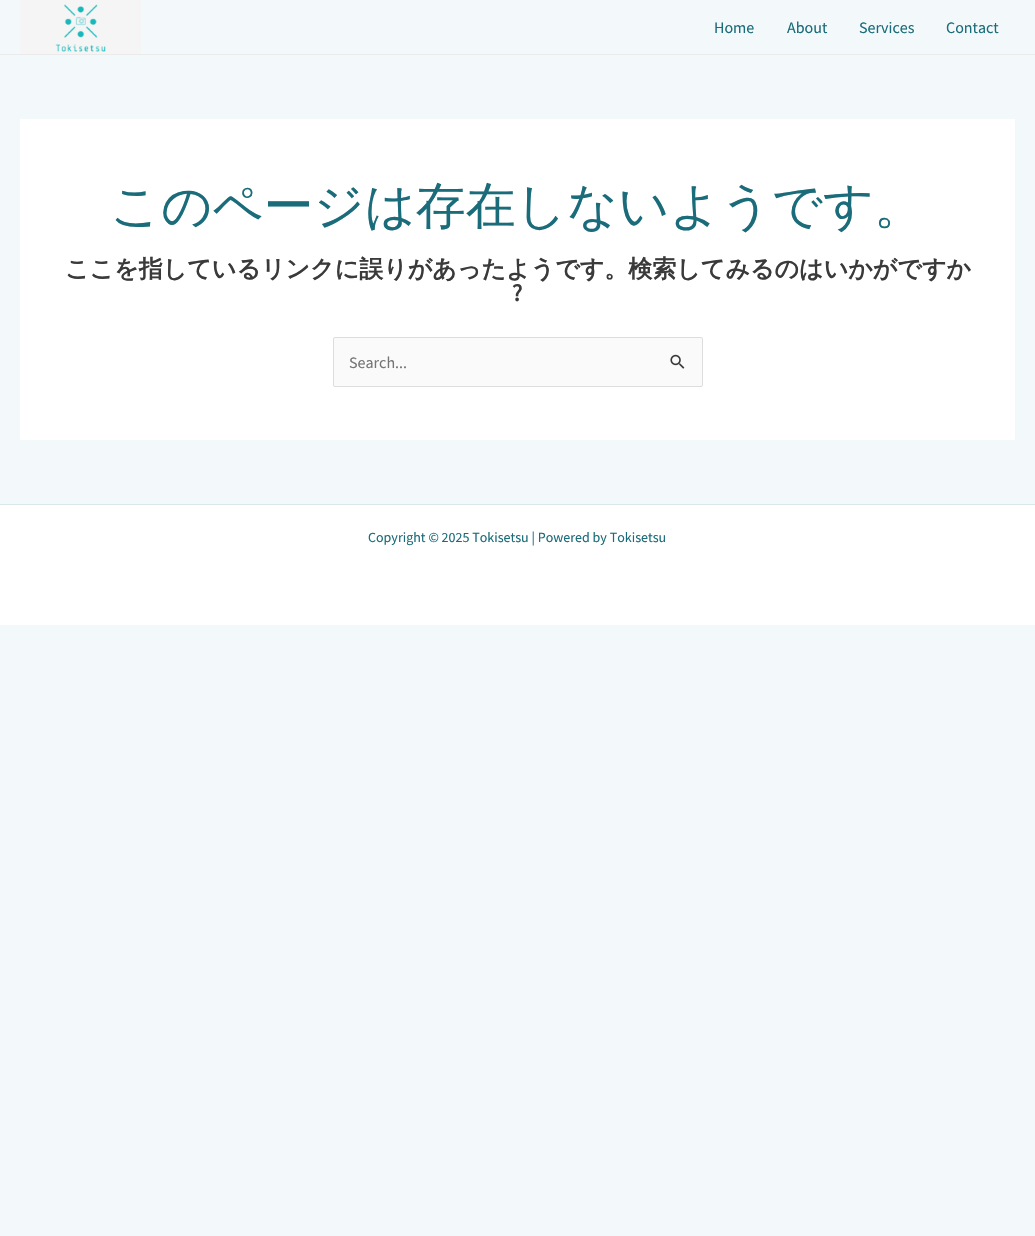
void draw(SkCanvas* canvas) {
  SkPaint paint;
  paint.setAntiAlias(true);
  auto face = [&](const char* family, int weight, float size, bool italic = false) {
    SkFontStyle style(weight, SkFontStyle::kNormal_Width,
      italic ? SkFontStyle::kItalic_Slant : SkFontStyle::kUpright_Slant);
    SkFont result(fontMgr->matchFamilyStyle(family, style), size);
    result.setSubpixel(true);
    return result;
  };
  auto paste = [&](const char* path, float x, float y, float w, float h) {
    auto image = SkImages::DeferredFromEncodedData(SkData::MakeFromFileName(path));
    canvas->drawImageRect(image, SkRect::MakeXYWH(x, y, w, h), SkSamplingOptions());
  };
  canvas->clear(0xfff3f9fb);
  paint.setColor(0xffeaeaea);
  canvas->drawRect(SkRect::MakeXYWH(0, 54, 1035, 1), paint);
  paste("img/1.png", 20, 0, 121, 54);
  paint.setColor(0xffffffff);
  canvas->drawRect(SkRect::MakeXYWH(20, 119, 995, 321), paint);
  paint.setColor(0xfffafafa);
  canvas->drawRoundRect(SkRect::MakeXYWH(333.5f, 337.5f, 369, 49), 1.5f, 1.5f, paint);
  paint.setStroke(true);
  paint.setStrokeWidth(1);
  paint.setColor(0xffdddddd);
  canvas->drawRoundRect(SkRect::MakeXYWH(333.5f, 337.5f, 369, 49), 1.5f, 1.5f, paint);
  paste("img/2.png", 670, 354, 15, 15);
  paint.setStroke(false);
  paint.setColor(0xffffffff);
  canvas->drawRect(SkRect::MakeXYWH(0, 505, 1035, 120), paint);
  paint.setColor(0xffdbe8eb);
  canvas->drawRect(SkRect::MakeXYWH(0, 504, 1035, 1), paint);
  auto f0 = face("Source Sans Pro", 400, 16);
  paint.setColor(0xff1a6c7a);
  {
    const struct { const char* s; float x, y; } items[] = {
      {"Home", 714, 33},
      {"About", 787, 33},
      {"Services", 859, 33},
      {"Contact", 946, 33},
    };
    for (auto [s, x, y] : items) {
      canvas->drawString(s, x, y, f0, paint);
    }
  }
  auto f1 = face("WenQuanYi Zen Hei", 500, 50);
  canvas->drawString("このページは存在しないようです。", 110, 223, f1, paint);
  auto f2 = face("WenQuanYi Zen Hei", 700, 24);
  paint.setColor(0xff3a3a3a);
  canvas->drawString("ここを指しているリンクに誤りがあったようです。検索してみるのはいかがですか", 65, 277, f2, paint);
  auto f3 = face("Source Sans Pro", 700, 24);
  canvas->drawString("?", 512, 301, f3, paint);
  paint.setColor(0xff757575);
  canvas->drawString("Search...", 349, 368, f0, paint);
  auto f4 = face("Source Sans Pro", 400, 14);
  paint.setColor(0xff1a6c7a);
  canvas->drawString("Copyright © 2025 Tokisetsu | Powered by Tokisetsu", 368, 542, f4, paint);
}
